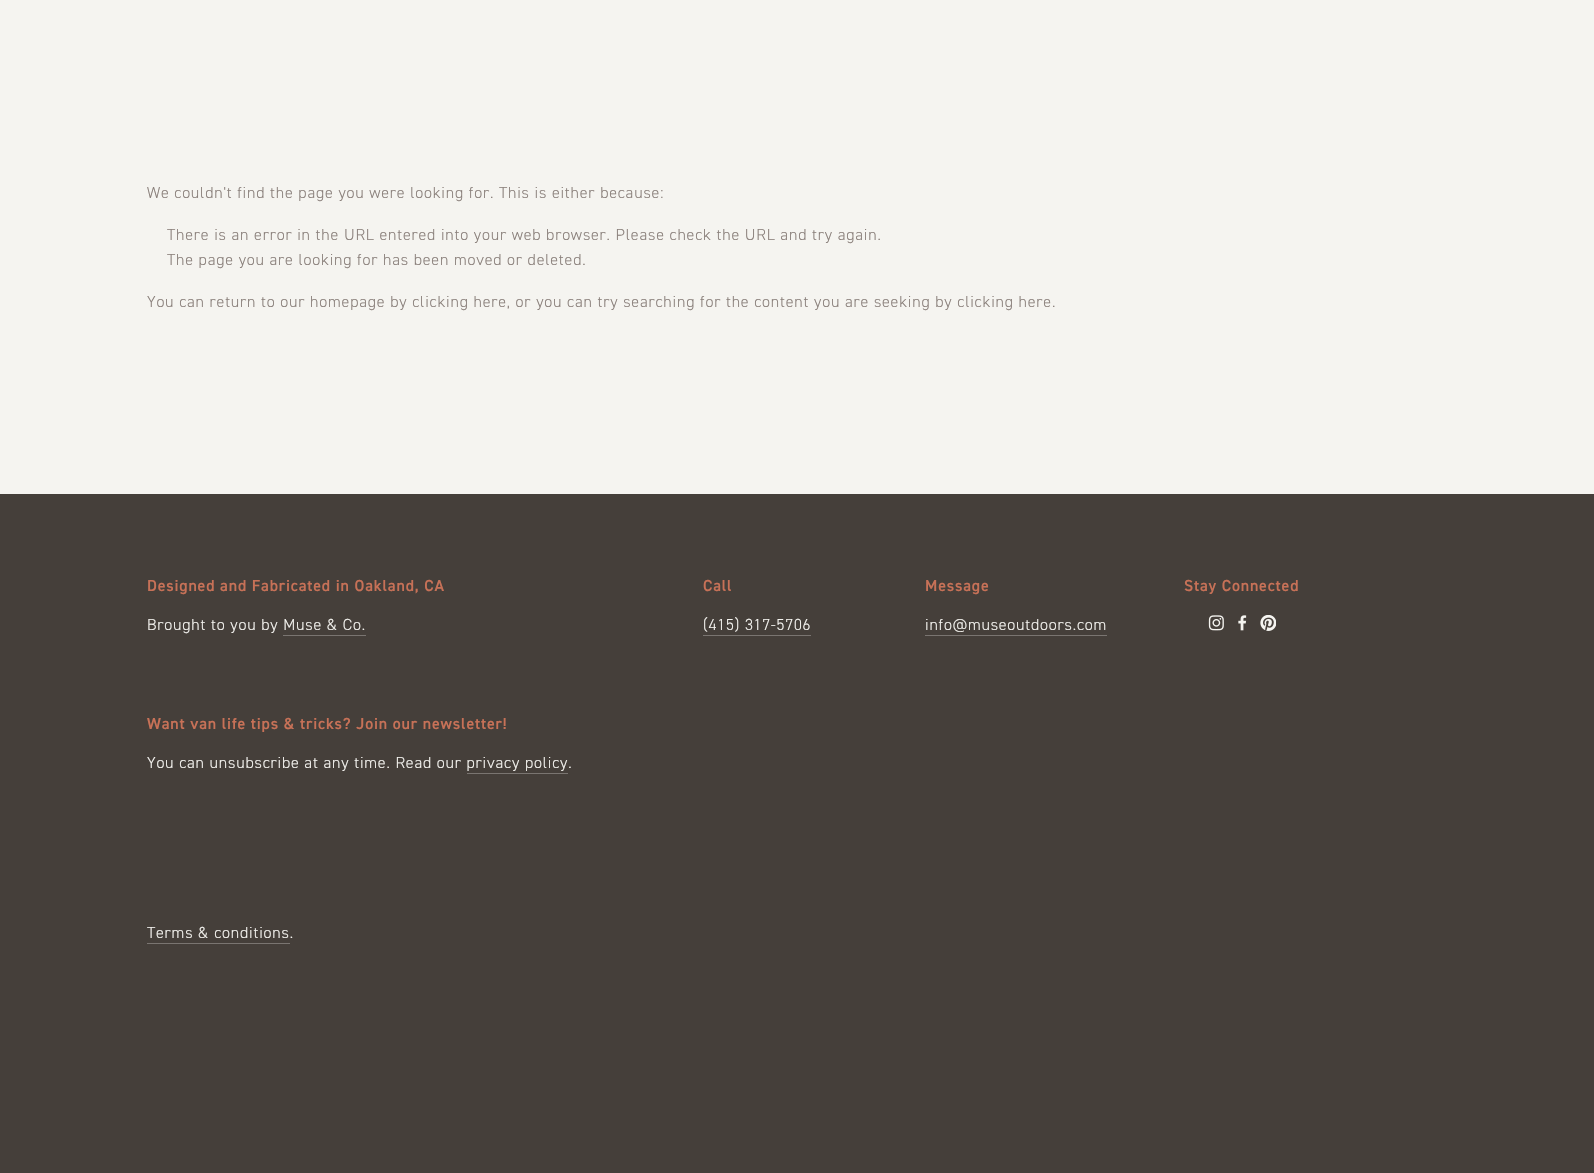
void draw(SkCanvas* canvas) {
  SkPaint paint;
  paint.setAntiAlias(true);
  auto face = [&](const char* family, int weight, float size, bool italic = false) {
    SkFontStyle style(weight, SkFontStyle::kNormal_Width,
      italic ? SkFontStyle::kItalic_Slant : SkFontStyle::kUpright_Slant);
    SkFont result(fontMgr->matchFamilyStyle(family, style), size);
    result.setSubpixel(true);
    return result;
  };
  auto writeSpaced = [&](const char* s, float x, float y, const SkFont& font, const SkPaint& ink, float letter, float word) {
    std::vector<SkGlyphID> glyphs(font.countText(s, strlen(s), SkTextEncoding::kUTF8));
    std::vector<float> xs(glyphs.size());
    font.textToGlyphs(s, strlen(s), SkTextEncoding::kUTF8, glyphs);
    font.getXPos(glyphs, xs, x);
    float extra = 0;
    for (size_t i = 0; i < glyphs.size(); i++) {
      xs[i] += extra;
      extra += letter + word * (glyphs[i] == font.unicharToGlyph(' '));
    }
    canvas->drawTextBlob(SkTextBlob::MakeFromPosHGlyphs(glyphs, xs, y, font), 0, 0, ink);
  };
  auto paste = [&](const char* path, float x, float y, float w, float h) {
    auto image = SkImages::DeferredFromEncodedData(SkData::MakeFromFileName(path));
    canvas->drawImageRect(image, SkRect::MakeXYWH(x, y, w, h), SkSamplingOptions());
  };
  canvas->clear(0xff453f3a);
  {
    const struct { float x, y, w, h; SkColor color; } items[] = {
      {0, 0, 1594, 494, 0xfff5f4f0},
      {283, 635, 83, 1, 0xff7a7571},
      {703, 635, 108, 1, 0xff7a7571},
      {925, 635, 182, 1, 0xff7a7571},
    };
    for (auto [x, y, w, h, color] : items) {
      paint.setColor(color);
      canvas->drawRect(SkRect::MakeXYWH(x, y, w, h), paint);
    }
  }
  paste("img/1.png", 1208, 615, 16, 16);
  paste("img/2.png", 1238, 615, 9, 16);
  paste("img/3.png", 1260, 615, 16, 16);
  canvas->drawRect(SkRect::MakeXYWH(467, 773, 101, 1), paint);
  canvas->drawRect(SkRect::MakeXYWH(147, 943, 143, 1), paint);
  auto f0 = face("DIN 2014", 300, 16);
  paint.setColor(0xff8a807b);
  {
    const struct { const char* s; float x, y; } items[] = {
      {"We couldn't find the page you were looking for. This is either because:", 147, 198},
      {"There is an error in the URL entered into your web browser. Please check the URL and try again.", 167, 240},
      {"The page you are looking for has been moved or deleted.", 167, 265},
      {"You can return to our homepage by clicking here, or you can try searching for the content you are seeking by clicking here.", 147, 307},
    };
    for (auto [s, x, y] : items) {
      writeSpaced(s, x, y, f0, paint, 0.8f, 0);
    }
  }
  auto f1 = face("DIN 2014", 600, 16);
  paint.setColor(0xffc77157);
  writeSpaced("Designed and Fabricated in Oakland, CA", 147, 591, f1, paint, 0.8f, 0);
  paint.setColor(0xfff5f4f0);
  writeSpaced("Brought to you by Muse & Co.", 147, 630, f0, paint, 0.8f, 0);
  paint.setColor(0xffc77157);
  writeSpaced("Call", 703, 591, f1, paint, 0.8f, 0);
  paint.setColor(0xfff5f4f0);
  writeSpaced("(415) 317-5706", 703, 630, f0, paint, 0.8f, 0);
  paint.setColor(0xffc77157);
  writeSpaced("Message", 925, 591, f1, paint, 0.8f, 0);
  paint.setColor(0xfff5f4f0);
  writeSpaced("info@museoutdoors.com", 925, 630, f0, paint, 0.8f, 0);
  paint.setColor(0xffc77157);
  writeSpaced("Stay Connected", 1184, 591, f1, paint, 0.8f, 0);
  writeSpaced("Want van life tips & tricks? Join our newsletter!", 147, 729, f1, paint, 0.8f, 0);
  paint.setColor(0xfff5f4f0);
  writeSpaced("You can unsubscribe at any time. Read our privacy policy.", 147, 768, f0, paint, 0.8f, 0);
  writeSpaced("Terms & conditions.", 147, 938, f0, paint, 0.8f, 0);
}
